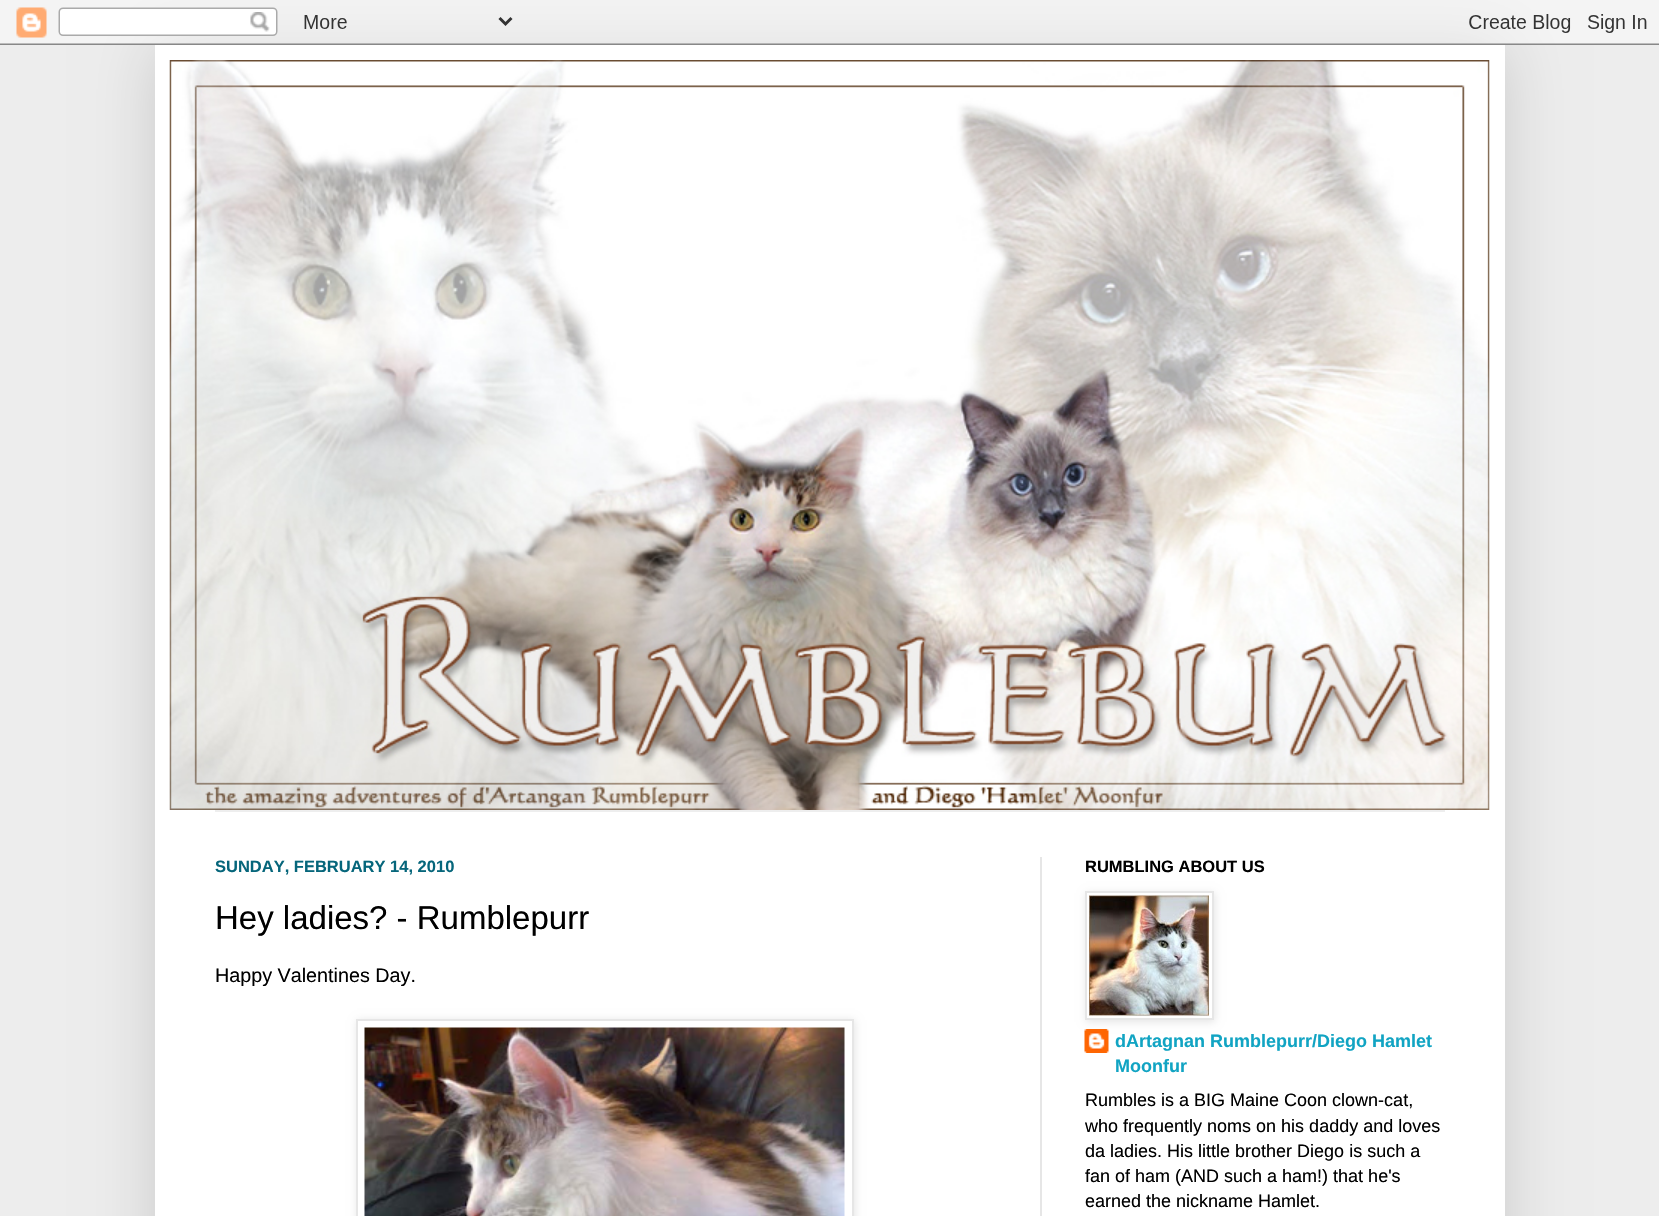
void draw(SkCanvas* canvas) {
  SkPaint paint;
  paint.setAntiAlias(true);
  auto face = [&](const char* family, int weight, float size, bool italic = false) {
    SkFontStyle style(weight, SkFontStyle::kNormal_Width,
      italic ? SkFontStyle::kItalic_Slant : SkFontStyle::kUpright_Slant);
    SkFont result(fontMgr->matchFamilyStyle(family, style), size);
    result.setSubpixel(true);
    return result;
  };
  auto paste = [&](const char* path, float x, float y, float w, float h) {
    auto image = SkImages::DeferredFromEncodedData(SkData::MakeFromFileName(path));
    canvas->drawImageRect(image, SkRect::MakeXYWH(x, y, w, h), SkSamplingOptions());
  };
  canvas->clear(0xffededed);
  paint.setColor(0x26000000);
  paint.setMaskFilter(SkMaskFilter::MakeBlur(kNormal_SkBlurStyle, 30));
  canvas->drawRect(SkRect::MakeXYWH(155, 45, 1350, 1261), paint);
  paint.setMaskFilter(nullptr);
  paste("img/1.png", 0, 0, 1659, 45);
  paint.setColor(0xffffffff);
  canvas->drawRect(SkRect::MakeXYWH(155, 45, 1350, 1171), paint);
  paste("img/2.png", 169, 60, 1321, 750);
  paint.setColor(0xffeeeeee);
  canvas->drawRect(SkRect::MakeXYWH(215, 810, 1230, 2), paint);
  paint.setColor(0xffe6e6e6);
  canvas->drawRect(SkRect::MakeXYWH(1040, 857, 2, 359), paint);
  paint.setColor(0x1a000000);
  paint.setMaskFilter(SkMaskFilter::MakeBlur(kNormal_SkBlurStyle, 4));
  canvas->drawRect(SkRect::MakeXYWH(357, 1020, 498, 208), paint);
  paint.setMaskFilter(nullptr);
  paint.setColor(0xffffffff);
  canvas->drawRect(SkRect::MakeXYWH(357, 1020, 496, 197), paint);
  paint.setStroke(true);
  paint.setStrokeWidth(2);
  paint.setColor(0xffe6e6e6);
  canvas->drawRect(SkRect::MakeXYWH(357, 1020, 496, 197), paint);
  paste("img/3.png", 364, 1027, 481, 189);
  paste("img/5.png", 1084, 1029, 25, 24);
  paint.setStroke(false);
  paint.setColor(0x1a000000);
  paint.setMaskFilter(SkMaskFilter::MakeBlur(kNormal_SkBlurStyle, 4));
  canvas->drawRect(SkRect::MakeXYWH(1086, 893, 129, 129), paint);
  paint.setMaskFilter(nullptr);
  paint.setColor(0xffffffff);
  canvas->drawRect(SkRect::MakeXYWH(1086, 892, 127, 127), paint);
  paint.setStroke(true);
  paint.setColor(0xffe6e6e6);
  canvas->drawRect(SkRect::MakeXYWH(1086, 892, 127, 127), paint);
  paste("img/4.png", 1089, 895, 120, 121);
  auto f0 = face("Liberation Sans", 700, 16.5f);
  paint.setStroke(false);
  paint.setColor(0xff06667b);
  canvas->drawString("SUNDAY, FEBRUARY 14, 2010", 215, 872, f0, paint);
  auto f1 = face("Liberation Sans", 400, 33);
  paint.setColor(0xff000000);
  canvas->drawString("Hey ladies? - Rumblepurr", 215, 929, f1, paint);
  auto f2 = face("Liberation Sans", 400, 19.75f);
  canvas->drawString("Happy Valentines Day.", 215, 982, f2, paint);
  canvas->drawString("RUMBLING ABOUT US", 1085, 872, f0, paint);
  auto f3 = face("Liberation Sans", 700, 18);
  paint.setColor(0xff11a4c3);
  canvas->drawString("dArtagnan Rumblepurr/Diego Hamlet", 1115, 1047, f3, paint);
  canvas->drawString("Moonfur", 1115, 1072, f3, paint);
  auto f4 = face("Liberation Sans", 400, 18);
  paint.setColor(0xff000000);
  {
    const struct { const char* s; float x, y; } items[] = {
      {"Rumbles is a BIG Maine Coon clown-cat,", 1085, 1106},
      {"who frequently noms on his daddy and loves", 1085, 1132},
      {"da ladies. His little brother Diego is such a", 1085, 1157},
      {"fan of ham (AND such a ham!) that he's", 1085, 1182},
      {"earned the nickname Hamlet.", 1085, 1207},
    };
    for (auto [s, x, y] : items) {
      canvas->drawString(s, x, y, f4, paint);
    }
  }
}
